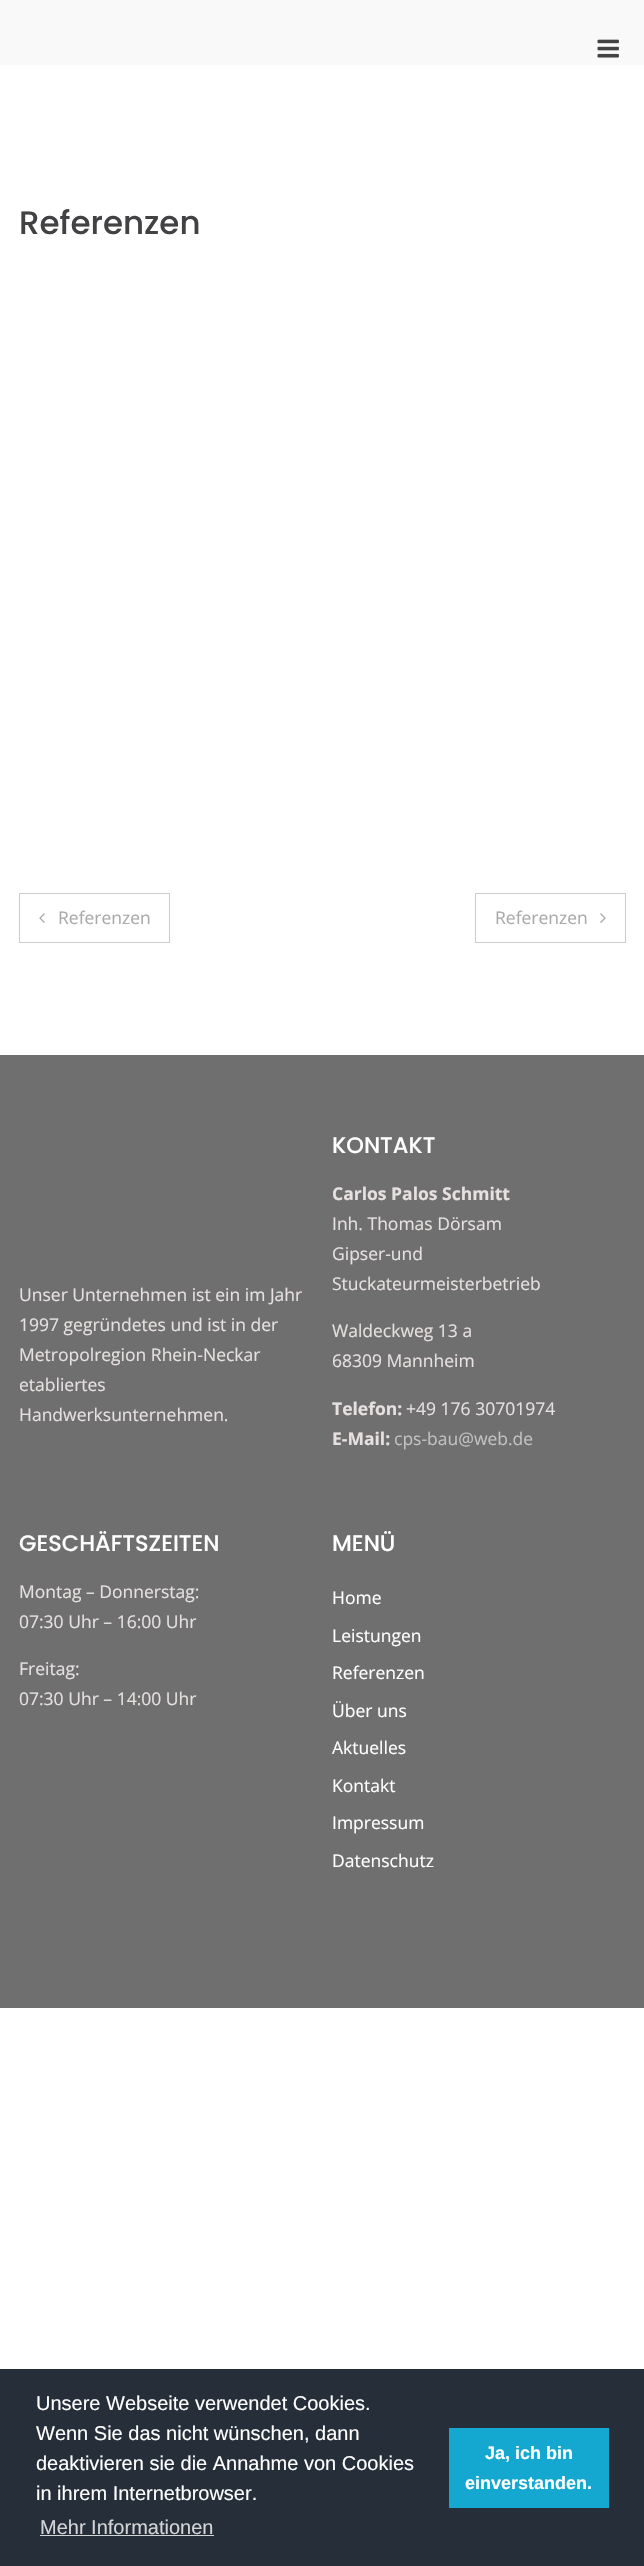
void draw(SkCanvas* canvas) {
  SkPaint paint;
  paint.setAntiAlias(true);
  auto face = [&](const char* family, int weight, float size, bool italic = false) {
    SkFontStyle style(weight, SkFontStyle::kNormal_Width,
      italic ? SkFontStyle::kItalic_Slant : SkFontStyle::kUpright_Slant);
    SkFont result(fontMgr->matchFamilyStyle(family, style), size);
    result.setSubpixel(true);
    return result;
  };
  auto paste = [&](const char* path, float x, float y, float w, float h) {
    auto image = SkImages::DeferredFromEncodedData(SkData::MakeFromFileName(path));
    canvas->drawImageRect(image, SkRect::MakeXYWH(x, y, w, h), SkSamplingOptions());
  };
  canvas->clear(0xffffffff);
  paint.setColor(0xfff9f9f9);
  canvas->drawRect(SkRect::MakeXYWH(0, 0, 644, 65), paint);
  paste("img/1.png", 597, 39, 22, 19);
  paint.setStroke(true);
  paint.setStrokeWidth(1);
  paint.setColor(0xffcccccc);
  canvas->drawRect(SkRect::MakeXYWH(19.5f, 893.5f, 150, 49), paint);
  paste("img/2.png", 39, 913, 6, 10);
  canvas->drawRect(SkRect::MakeXYWH(475.5f, 893.5f, 150, 49), paint);
  paste("img/3.png", 600, 913, 6, 10);
  paint.setStroke(false);
  {
    const struct { float x, y, w, h; SkColor color; } items[] = {
      {0, 1055, 644, 953, 0xff6f6f6f},
      {0, 2369, 644, 197, 0xff252e39},
      {40, 2535, 174, 1, 0xffd3d5d7},
      {449, 2428, 160, 80, 0xff14a7d0},
    };
    for (auto [x, y, w, h, color] : items) {
      paint.setColor(color);
      canvas->drawRect(SkRect::MakeXYWH(x, y, w, h), paint);
    }
  }
  auto f0 = face("Poppins", 500, 32.5f);
  paint.setColor(0xff424143);
  canvas->drawString("Referenzen", 19, 234, f0, paint);
  auto f1 = face("Open Sans", 400, 17.5f);
  paint.setColor(0xffaaaaaa);
  canvas->drawString("Referenzen", 58, 924, f1, paint);
  canvas->drawString("Referenzen", 495, 924, f1, paint);
  paint.setColor(0xffe6e0e0);
  {
    const struct { const char* s; float x, y; } items[] = {
      {"Unser Unternehmen ist ein im Jahr", 19, 1301},
      {"1997 gegründetes und ist in der", 19, 1331},
      {"Metropolregion Rhein-Neckar", 19, 1361},
      {"etabliertes", 19, 1391},
      {"Handwerksunternehmen.", 19, 1421},
    };
    for (auto [s, x, y] : items) {
      canvas->drawString(s, x, y, f1, paint);
    }
  }
  auto f2 = face("Poppins", 500, 22.5f);
  paint.setColor(0xffffffff);
  canvas->drawString("KONTAKT", 332, 1153, f2, paint);
  auto f3 = face("Open Sans", 700, 17.5f);
  paint.setColor(0xffe6e0e0);
  canvas->drawString("Carlos Palos Schmitt", 332, 1200, f3, paint);
  {
    const struct { const char* s; float x, y; } items[] = {
      {"Inh. Thomas Dörsam", 332, 1230},
      {"Gipser-und", 332, 1260},
      {"Stuckateurmeisterbetrieb", 332, 1290},
      {"Waldeckweg 13 a", 332, 1337},
      {"68309 Mannheim", 332, 1367},
    };
    for (auto [s, x, y] : items) {
      canvas->drawString(s, x, y, f1, paint);
    }
  }
  canvas->drawString("Telefon:", 332, 1415, f3, paint);
  canvas->drawString("+49 176 30701974", 406, 1415, f1, paint);
  canvas->drawString("E-Mail:", 332, 1445, f3, paint);
  paint.setColor(0xffc1c1c1);
  canvas->drawString("cps-bau@web.de", 394, 1445, f1, paint);
  paint.setColor(0xffffffff);
  canvas->drawString("GESCHÄFTSZEITEN", 19, 1551, f2, paint);
  paint.setColor(0xffe6e0e0);
  {
    const struct { const char* s; float x, y; } items[] = {
      {"Montag – Donnerstag:", 19, 1598},
      {"07:30 Uhr – 16:00 Uhr", 19, 1628},
      {"Freitag:", 19, 1675},
      {"07:30 Uhr – 14:00 Uhr", 19, 1705},
    };
    for (auto [s, x, y] : items) {
      canvas->drawString(s, x, y, f1, paint);
    }
  }
  paint.setColor(0xffffffff);
  canvas->drawString("MENÜ", 332, 1551, f2, paint);
  {
    const struct { const char* s; float x, y; } items[] = {
      {"Home", 332, 1604},
      {"Leistungen", 332, 1642},
      {"Referenzen", 332, 1679},
      {"Über uns", 332, 1717},
      {"Aktuelles", 332, 1754},
      {"Kontakt", 332, 1792},
      {"Impressum", 332, 1829},
      {"Datenschutz", 332, 1867},
    };
    for (auto [s, x, y] : items) {
      canvas->drawString(s, x, y, f1, paint);
    }
  }
  auto f4 = face("Liberation Sans", 400, 20);
  {
    const struct { const char* s; float x, y; } items[] = {
      {"Unsere Webseite verwendet Cookies.", 36, 2410},
      {"Wenn Sie das nicht wünschen, dann", 36, 2440},
      {"deaktivieren sie die Annahme von Cookies", 36, 2470},
      {"in ihrem Internetbrowser.", 36, 2500},
    };
    for (auto [s, x, y] : items) {
      canvas->drawString(s, x, y, f4, paint);
    }
  }
  paint.setColor(0xffd3d5d7);
  canvas->drawString("Mehr Informationen", 40, 2534, f4, paint);
  auto f5 = face("Liberation Sans", 700, 18);
  paint.setColor(0xffffffff);
  canvas->drawString("Ja, ich bin", 485, 2459, f5, paint);
  canvas->drawString("einverstanden.", 465, 2489, f5, paint);
}
